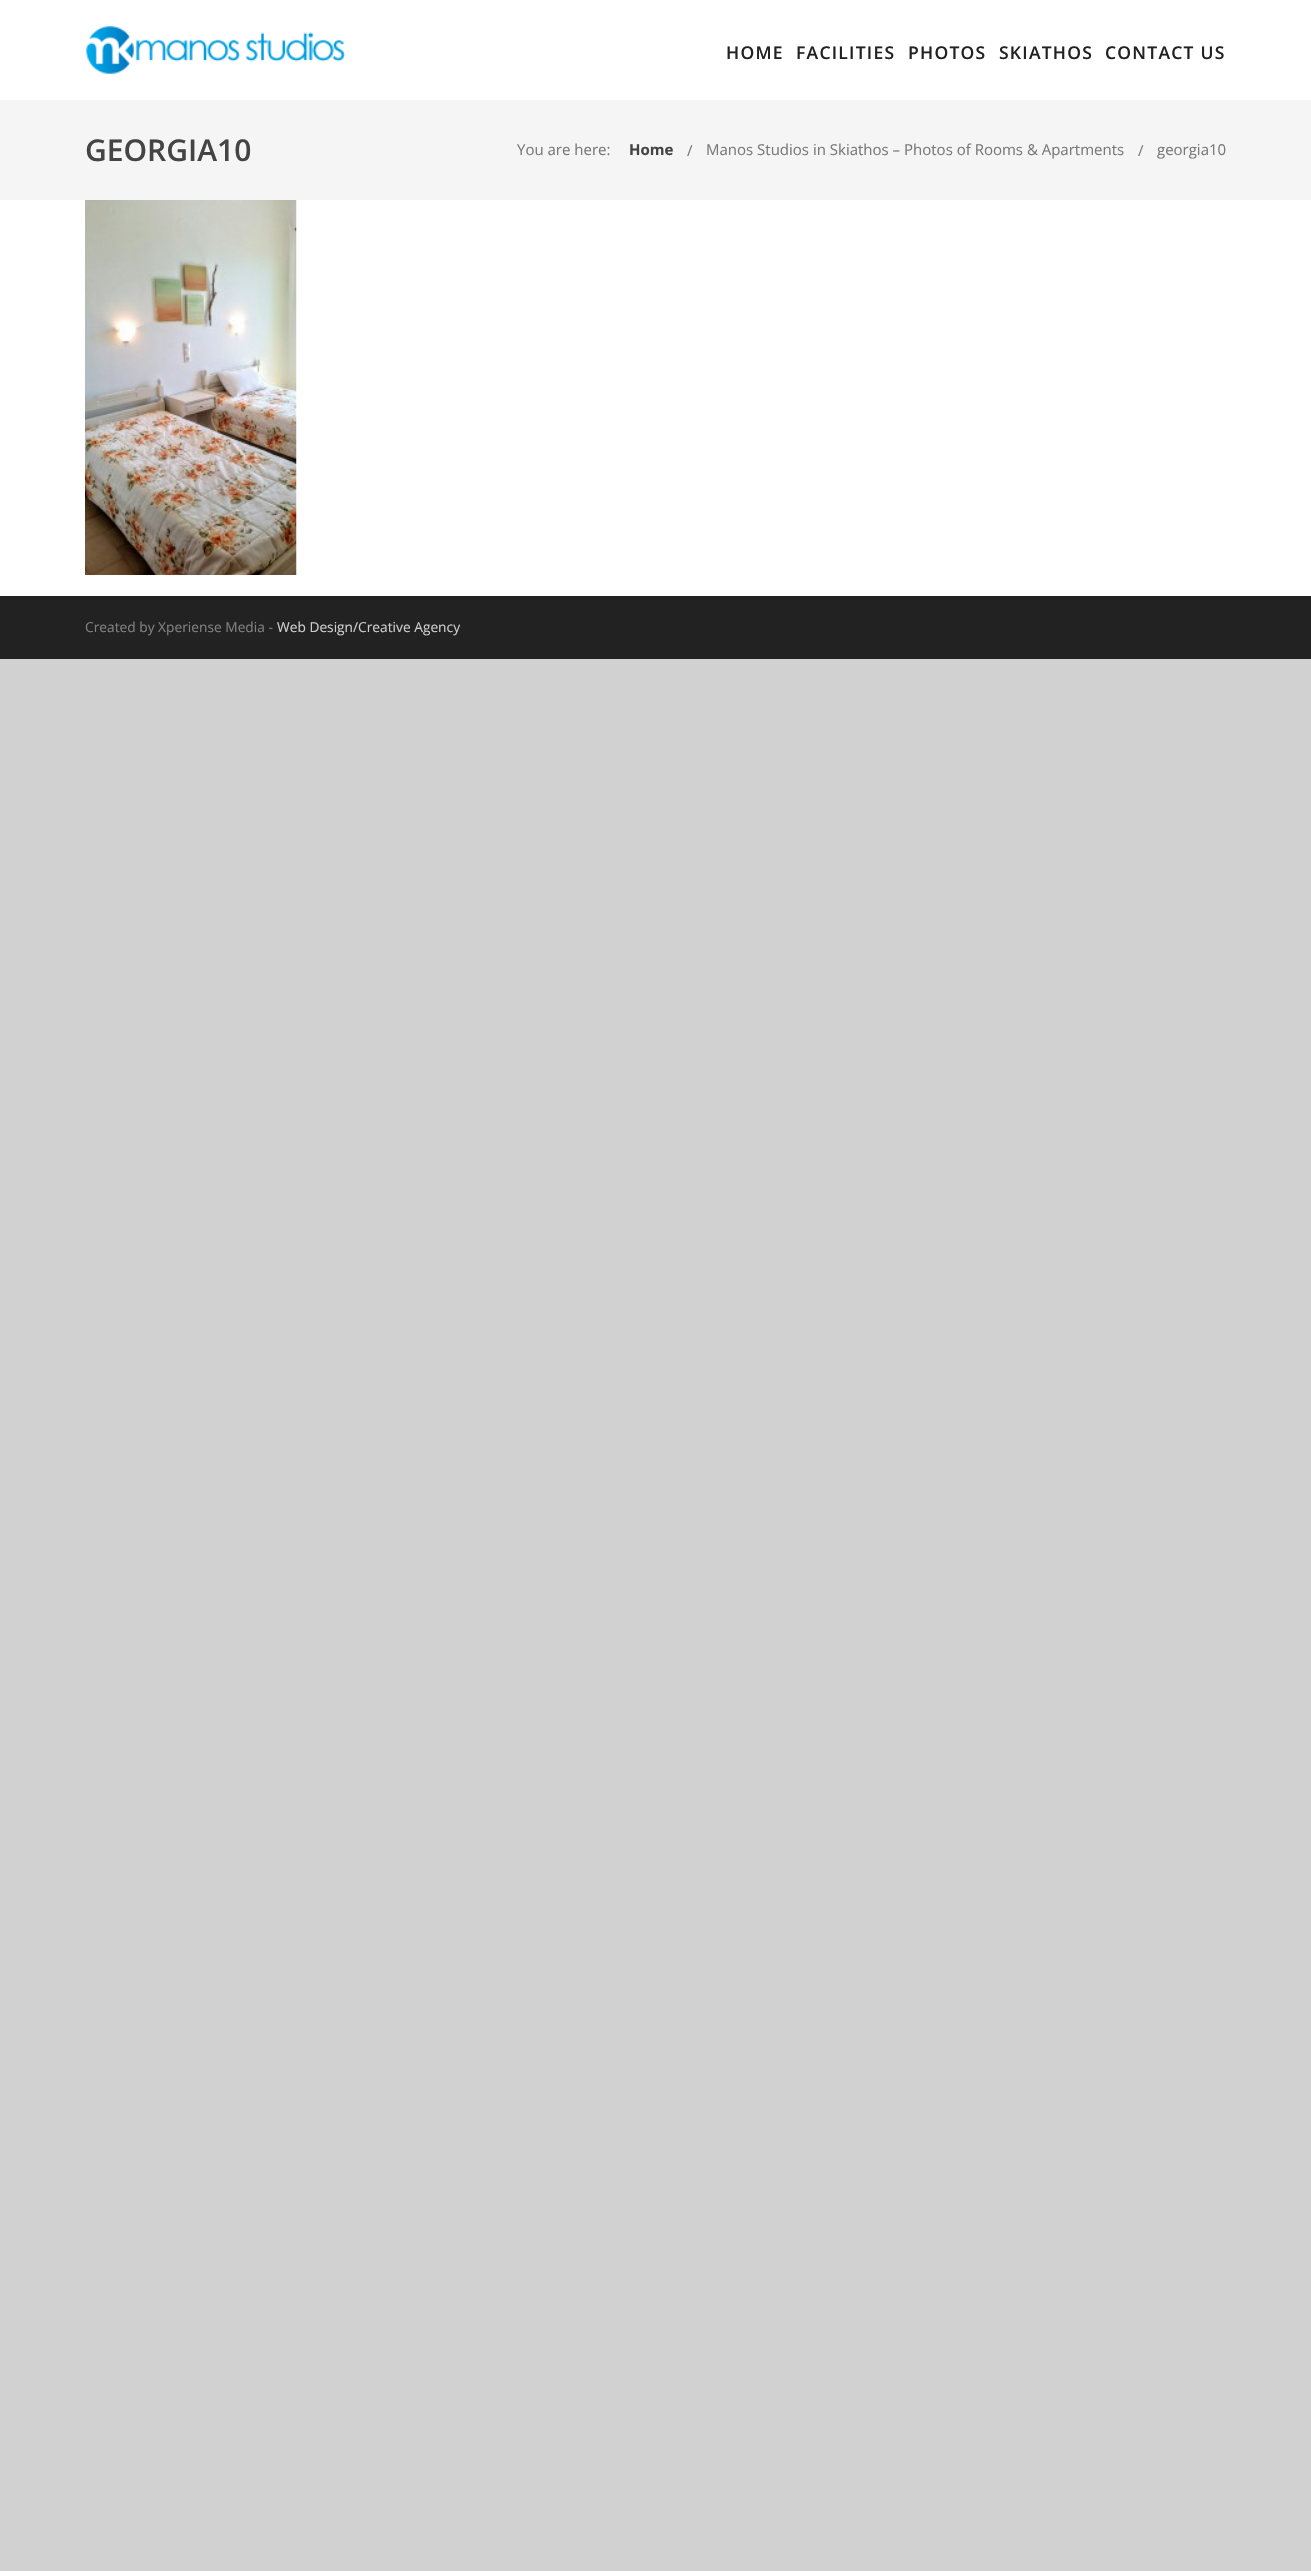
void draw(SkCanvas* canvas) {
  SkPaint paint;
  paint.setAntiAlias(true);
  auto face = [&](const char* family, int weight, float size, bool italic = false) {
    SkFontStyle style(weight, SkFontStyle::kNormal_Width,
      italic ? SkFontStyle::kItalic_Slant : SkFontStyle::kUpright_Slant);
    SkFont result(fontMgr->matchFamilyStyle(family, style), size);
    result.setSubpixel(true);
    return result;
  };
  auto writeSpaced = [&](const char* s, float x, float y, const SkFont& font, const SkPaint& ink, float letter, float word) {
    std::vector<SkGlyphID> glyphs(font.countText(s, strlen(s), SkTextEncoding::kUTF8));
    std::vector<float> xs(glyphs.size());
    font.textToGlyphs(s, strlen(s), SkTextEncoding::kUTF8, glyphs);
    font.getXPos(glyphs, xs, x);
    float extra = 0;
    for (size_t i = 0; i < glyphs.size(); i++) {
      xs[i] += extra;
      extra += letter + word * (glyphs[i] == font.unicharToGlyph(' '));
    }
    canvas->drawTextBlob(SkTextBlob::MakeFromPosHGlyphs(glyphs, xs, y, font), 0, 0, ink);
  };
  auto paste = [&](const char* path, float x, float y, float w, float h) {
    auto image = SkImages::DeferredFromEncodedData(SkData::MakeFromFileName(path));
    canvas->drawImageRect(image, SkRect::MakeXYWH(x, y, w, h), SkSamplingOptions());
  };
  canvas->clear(0xffd1d1d1);
  paint.setColor(0xffffffff);
  canvas->drawRect(SkRect::MakeXYWH(0, 0, 1311, 100), paint);
  paste("img/1.png", 86, 26, 260, 48);
  paint.setColor(0xfff5f5f5);
  canvas->drawRect(SkRect::MakeXYWH(0, 100, 1311, 100), paint);
  paint.setColor(0xffffffff);
  canvas->drawRect(SkRect::MakeXYWH(0, 200, 1311, 396), paint);
  paste("img/2.png", 85, 200, 212, 375);
  paint.setColor(0xff222222);
  canvas->drawRect(SkRect::MakeXYWH(0, 596, 1311, 63), paint);
  auto f0 = face("Open Sans", 600, 17.5f);
  {
    const struct { const char* s; float x, y; } items[] = {
      {"HOME", 726, 59},
      {"FACILITIES", 796, 59},
      {"PHOTOS", 908, 59},
      {"SKIATHOS", 999, 59},
      {"CONTACT US", 1105, 59},
    };
    for (auto [s, x, y] : items) {
      writeSpaced(s, x, y, f0, paint, 1.25f, 0);
    }
  }
  auto f1 = face("Open Sans", 600, 30);
  paint.setColor(0xff444444);
  canvas->drawString("GEORGIA10", 85, 161, f1, paint);
  auto f2 = face("Open Sans", 400, 15);
  paint.setColor(0xff797979);
  canvas->drawString("You are here:", 517, 155, f2, paint);
  auto f3 = face("Open Sans", 700, 15);
  paint.setColor(0xff444444);
  canvas->drawString("Home", 629, 155, f3, paint);
  paint.setColor(0xff797979);
  {
    const struct { const char* s; float x, y; } items[] = {
      {"/", 687, 156},
      {"Manos Studios in Skiathos – Photos of Rooms & Apartments", 706, 155},
      {"/", 1138, 156},
      {"georgia10", 1157, 155},
    };
    for (auto [s, x, y] : items) {
      canvas->drawString(s, x, y, f2, paint);
    }
  }
  auto f4 = face("Open Sans", 400, 13.75f);
  paint.setColor(0xff818181);
  canvas->drawString("Created by Xperiense Media -", 85, 632, f4, paint);
  paint.setColor(0xffcdcdcd);
  canvas->drawString("Web Design/Creative Agency", 277, 632, f4, paint);
}
